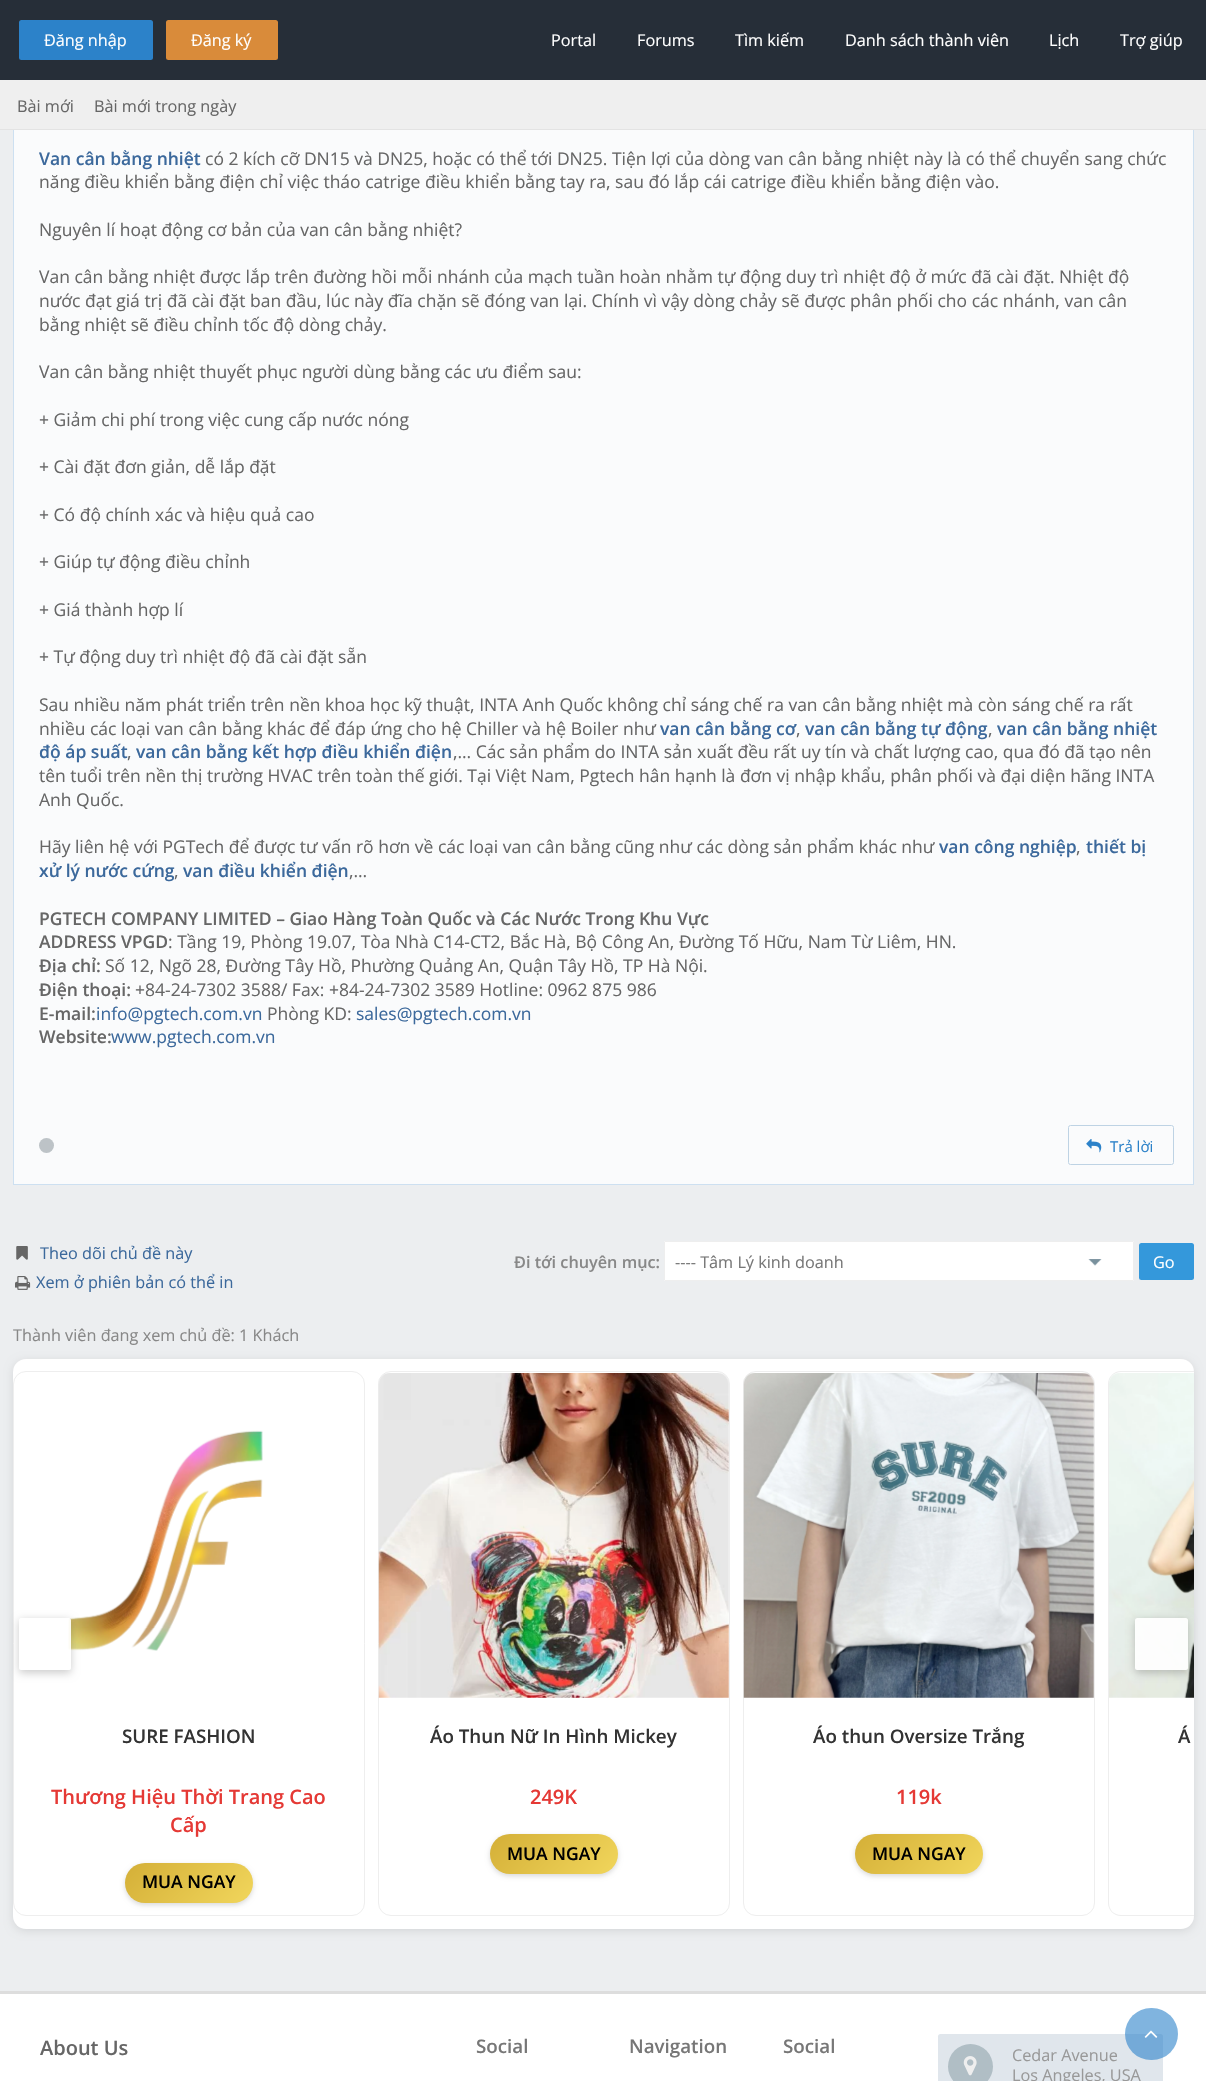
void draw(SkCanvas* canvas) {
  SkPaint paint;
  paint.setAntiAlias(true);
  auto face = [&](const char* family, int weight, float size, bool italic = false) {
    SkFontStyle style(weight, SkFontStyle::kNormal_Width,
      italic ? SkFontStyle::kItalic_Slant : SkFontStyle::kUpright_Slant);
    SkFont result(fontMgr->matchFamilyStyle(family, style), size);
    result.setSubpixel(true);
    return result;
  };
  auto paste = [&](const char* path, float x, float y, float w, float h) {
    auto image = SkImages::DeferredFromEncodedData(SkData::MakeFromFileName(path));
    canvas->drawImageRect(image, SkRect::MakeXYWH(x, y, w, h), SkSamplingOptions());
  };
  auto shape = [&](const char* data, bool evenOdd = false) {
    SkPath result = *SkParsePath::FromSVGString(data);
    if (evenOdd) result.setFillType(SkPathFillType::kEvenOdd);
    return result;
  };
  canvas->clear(0xffeceef0);
  paint.setColor(0xfffafbfc);
  canvas->drawRect(SkRect::MakeXYWH(14, 130, 1179, 1054), paint);
  paint.setStroke(true);
  paint.setStrokeWidth(1);
  paint.setColor(0xffcde0f1);
  canvas->drawRect(SkRect::MakeXYWH(13.5f, -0.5f, 1180, 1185), paint);
  paint.setStroke(false);
  paint.setColor(0xff262e38);
  canvas->drawRect(SkRect::MakeXYWH(0, 0, 1206, 80), paint);
  paint.setColor(0xff2c82c9);
  canvas->drawRoundRect(SkRect::MakeXYWH(19, 20, 134, 40), 2.5f, 2.5f, paint);
  paint.setColor(0xffd98b3a);
  canvas->drawRoundRect(SkRect::MakeXYWH(166, 20, 112, 40), 2.5f, 2.5f, paint);
  paint.setColor(0xffefefef);
  canvas->drawRect(SkRect::MakeXYWH(0, 80, 1206, 49), paint);
  paint.setColor(0xffe3e3e3);
  canvas->drawRect(SkRect::MakeXYWH(0, 129, 1206, 1), paint);
  paint.setColor(0xffbdc3c7);
  canvas->drawCircle(46.5f, 1145.5f, 7.5f, paint);
  paint.setStroke(true);
  paint.setColor(0xffbed3e4);
  canvas->drawRoundRect(SkRect::MakeXYWH(1068.5f, 1125.5f, 105, 39), 2, 2, paint);
  paste("img/1.png", 1086, 1139, 16, 14);
  paste("img/2.png", 16, 1246, 12, 14);
  paste("img/3.png", 15, 1276, 16, 14);
  paint.setStroke(false);
  paint.setColor(0xffffffff);
  canvas->drawRoundRect(SkRect::MakeXYWH(664, 1241, 470, 40), 1, 1, paint);
  paste("img/4.png", 1088, 1259, 14, 7);
  paint.setStroke(true);
  paint.setColor(0xffeeeeee);
  canvas->drawRoundRect(SkRect::MakeXYWH(664.5f, 1241.5f, 469, 39), 0.5f, 0.5f, paint);
  paint.setStroke(false);
  paint.setColor(0xff3498db);
  canvas->drawRoundRect(SkRect::MakeXYWH(1139, 1243, 55, 37), 2.5f, 2.5f, paint);
  paint.setColor(0x1a000000);
  paint.setMaskFilter(SkMaskFilter::MakeBlur(kNormal_SkBlurStyle, 4));
  canvas->drawRoundRect(SkRect::MakeXYWH(13, 1361, 1181, 570), 13, 13, paint);
  paint.setMaskFilter(nullptr);
  paint.setColor(0xffffffff);
  canvas->drawRoundRect(SkRect::MakeXYWH(13, 1359, 1181, 570), 13, 13, paint);
  paint.setStroke(true);
  paint.setColor(0xffeeeeee);
  canvas->drawRoundRect(SkRect::MakeXYWH(13.5f, 1371.5f, 351, 544), 12.5f, 12.5f, paint);
  paste("img/5.png", 67, 1430, 196, 221);
  canvas->save();
  canvas->clipPath(shape("M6 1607H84V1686H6ZM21.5 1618H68.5C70 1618 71 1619 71 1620.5V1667.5C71 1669 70 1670 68.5 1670H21.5C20 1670 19 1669 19 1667.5V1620.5C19 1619 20 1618 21.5 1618Z", true), true);
  paint.setStroke(false);
  paint.setColor(0x33000000);
  paint.setMaskFilter(SkMaskFilter::MakeBlur(kNormal_SkBlurStyle, 4));
  canvas->drawRoundRect(SkRect::MakeXYWH(19, 1620, 52, 53), 2.5f, 2.5f, paint);
  paint.setMaskFilter(nullptr);
  canvas->restore();
  paint.setColor(0xe6ffffff);
  canvas->drawRoundRect(SkRect::MakeXYWH(19, 1618, 52, 52), 2.5f, 2.5f, paint);
  paint.setColor(0xffeeeeee);
  canvas->drawPath(shape("M1121 1371C1114 1371 1108 1377 1108 1384V1903C1108 1910 1114 1916 1121 1916H1194V1915H1121C1114 1915 1109 1910 1109 1903V1384C1109 1377 1114 1372 1121 1372H1194V1371Z"), paint);
  paste("img/8.png", 1109, 1373, 85, 325);
  canvas->save();
  canvas->clipPath(shape("M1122 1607H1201V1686H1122ZM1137.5 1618H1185.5C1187 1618 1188 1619 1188 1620.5V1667.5C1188 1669 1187 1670 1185.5 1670H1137.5C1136 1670 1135 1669 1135 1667.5V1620.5C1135 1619 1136 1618 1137.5 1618Z", true), true);
  paint.setColor(0x33000000);
  paint.setMaskFilter(SkMaskFilter::MakeBlur(kNormal_SkBlurStyle, 4));
  canvas->drawRoundRect(SkRect::MakeXYWH(1135, 1620, 53, 53), 2.5f, 2.5f, paint);
  paint.setMaskFilter(nullptr);
  canvas->restore();
  paint.setColor(0xe6ffffff);
  canvas->drawRoundRect(SkRect::MakeXYWH(1135, 1618, 53, 52), 2.5f, 2.5f, paint);
  paint.setColor(0x26000000);
  paint.setMaskFilter(SkMaskFilter::MakeBlur(kNormal_SkBlurStyle, 2.5f));
  canvas->drawRoundRect(SkRect::MakeXYWH(125, 1865, 128, 40), 20, 20, paint);
  paint.setMaskFilter(nullptr);
  {
    const SkColor colors[] = {0xffd4af37, 0xfff1d65c};
    const float stops[] = {0, 1};
    const SkPoint ends[] = {{147, 1841}, {231, 1924}};
    paint.setShader(SkGradientShader::MakeLinear(ends, colors, stops, 2, SkTileMode::kClamp));
    paint.setAlpha(255);
  }
  canvas->drawRoundRect(SkRect::MakeXYWH(125, 1863, 128, 40), 20, 20, paint);
  paint.setStroke(true);
  paint.setShader(nullptr);
  paint.setColor(0xffeeeeee);
  canvas->drawRoundRect(SkRect::MakeXYWH(378.5f, 1371.5f, 351, 544), 12.5f, 12.5f, paint);
  paste("img/6.png", 378, 1373, 351, 325);
  paint.setStroke(false);
  paint.setColor(0x26000000);
  paint.setMaskFilter(SkMaskFilter::MakeBlur(kNormal_SkBlurStyle, 2.5f));
  canvas->drawRoundRect(SkRect::MakeXYWH(490, 1836, 128, 40), 20, 20, paint);
  paint.setMaskFilter(nullptr);
  {
    const SkColor colors[] = {0xffd4af37, 0xfff1d65c};
    const float stops[] = {0, 1};
    const SkPoint ends[] = {{512, 1812}, {596, 1896}};
    paint.setShader(SkGradientShader::MakeLinear(ends, colors, stops, 2, SkTileMode::kClamp));
    paint.setAlpha(255);
  }
  canvas->drawRoundRect(SkRect::MakeXYWH(490, 1834, 128, 40), 20, 20, paint);
  paint.setStroke(true);
  paint.setShader(nullptr);
  paint.setColor(0xffeeeeee);
  canvas->drawRoundRect(SkRect::MakeXYWH(743.5f, 1371.5f, 351, 544), 12.5f, 12.5f, paint);
  paste("img/7.png", 743, 1373, 351, 325);
  paint.setStroke(false);
  paint.setColor(0x26000000);
  paint.setMaskFilter(SkMaskFilter::MakeBlur(kNormal_SkBlurStyle, 2.5f));
  canvas->drawRoundRect(SkRect::MakeXYWH(855, 1836, 128, 40), 20, 20, paint);
  paint.setMaskFilter(nullptr);
  {
    const SkColor colors[] = {0xffd4af37, 0xfff1d65c};
    const float stops[] = {0, 1};
    const SkPoint ends[] = {{877, 1812}, {961, 1896}};
    paint.setShader(SkGradientShader::MakeLinear(ends, colors, stops, 2, SkTileMode::kClamp));
    paint.setAlpha(255);
  }
  canvas->drawRoundRect(SkRect::MakeXYWH(855, 1834, 128, 40), 20, 20, paint);
  paint.setShader(nullptr);
  paint.setColor(0xffffffff);
  canvas->drawRect(SkRect::MakeXYWH(0, 1994, 1206, 87), paint);
  paint.setColor(0xffdddddd);
  canvas->drawRect(SkRect::MakeXYWH(0, 1991, 1206, 3), paint);
  paint.setColor(0xffe0e6ec);
  canvas->drawRoundRect(SkRect::MakeXYWH(938, 2034, 225, 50), 2.5f, 2.5f, paint);
  paint.setColor(0xffb0bec5);
  canvas->drawCircle(970.5f, 2066.5f, 22.5f, paint);
  paste("img/9.png", 963, 2056, 14, 20);
  paint.setColor(0x992c82c9);
  canvas->drawRoundRect(SkRect::MakeXYWH(1125, 2008, 53, 52), 26, 26, paint);
  paste("img/10.png", 1144, 2030, 14, 8);
  auto f0 = face("Open Sans", 400, 16.25f);
  paint.setColor(0xffffffff);
  {
    const struct { const char* s; float x, y; } items[] = {
      {"Đăng nhập", 44, 46},
      {"Đăng ký", 191, 46},
      {"Portal", 551, 46},
      {"Forums", 637, 46},
      {"Tìm kiếm", 735, 46},
      {"Danh sách thành viên", 845, 46},
      {"Lịch", 1049, 46},
      {"Trợ giúp", 1120, 46},
    };
    for (auto [s, x, y] : items) {
      canvas->drawString(s, x, y, f0, paint);
    }
  }
  paint.setColor(0xff666666);
  canvas->drawString("Bài mới", 17, 112, f0, paint);
  canvas->drawString("Bài mới trong ngày", 94, 112, f0, paint);
  auto f1 = face("Open Sans", 600, 17.5f);
  paint.setColor(0xff3c699c);
  canvas->drawString("Van cân bằng nhiệt", 39, 165, f1, paint);
  auto f2 = face("Open Sans", 400, 17.5f);
  paint.setColor(0xff666666);
  {
    const struct { const char* s; float x, y; } items[] = {
      {"có 2 kích cỡ DN15 và DN25, hoặc có thể tới DN25. Tiện lợi của dòng van cân bằng nhiệt này là có thể chuyển sang chức", 205, 165},
      {"năng điều khiển bằng điện chỉ việc tháo catrige điều khiển bằng tay ra, sau đó lắp cái catrige điều khiển bằng điện vào.", 39, 188},
      {"Nguyên lí hoạt động cơ bản của van cân bằng nhiệt?", 39, 236},
      {"Van cân bằng nhiệt được lắp trên đường hồi mỗi nhánh của mạch tuần hoàn nhằm tự động duy trì nhiệt độ ở mức đã cài đặt. Nhiệt độ", 39, 283},
      {"nước đạt giá trị đã cài đặt ban đầu, lúc này đĩa chặn sẽ đóng van lại. Chính vì vậy dòng chảy sẽ được phân phối cho các nhánh, van cân", 39, 307},
      {"bằng nhiệt sẽ điều chỉnh tốc độ dòng chảy.", 39, 331},
      {"Van cân bằng nhiệt thuyết phục người dùng bằng các ưu điểm sau:", 39, 378},
      {"+ Giảm chi phí trong việc cung cấp nước nóng", 39, 426},
      {"+ Cài đặt đơn giản, dễ lắp đặt", 39, 473},
      {"+ Có độ chính xác và hiệu quả cao", 39, 521},
      {"+ Giúp tự động điều chỉnh", 39, 568},
      {"+ Giá thành hợp lí", 39, 616},
      {"+ Tự động duy trì nhiệt độ đã cài đặt sẵn", 39, 663},
      {"Sau nhiều năm phát triển trên nền khoa học kỹ thuật, INTA Anh Quốc không chỉ sáng chế ra van cân bằng nhiệt mà còn sáng chế ra rất", 39, 711},
      {"nhiều các loại van cân bằng khác để đáp ứng cho hệ Chiller và hệ Boiler như", 39, 735},
    };
    for (auto [s, x, y] : items) {
      canvas->drawString(s, x, y, f2, paint);
    }
  }
  paint.setColor(0xff3c699c);
  canvas->drawString("van cân bằng cơ", 660, 735, f1, paint);
  paint.setColor(0xff666666);
  canvas->drawString(",", 796, 735, f2, paint);
  paint.setColor(0xff3c699c);
  canvas->drawString("van cân bằng tự động", 805, 735, f1, paint);
  paint.setColor(0xff666666);
  canvas->drawString(",", 988, 735, f2, paint);
  paint.setColor(0xff3c699c);
  canvas->drawString("van cân bằng nhiệt", 997, 735, f1, paint);
  canvas->drawString("độ áp suất", 39, 758, f1, paint);
  paint.setColor(0xff666666);
  canvas->drawString(",", 127, 758, f2, paint);
  paint.setColor(0xff3c699c);
  canvas->drawString("van cân bằng kết hợp điều khiển điện", 136, 758, f1, paint);
  paint.setColor(0xff666666);
  {
    const struct { const char* s; float x, y; } items[] = {
      {",… Các sản phẩm do INTA sản xuất đều rất uy tín và chất lượng cao, qua đó đã tạo nên", 453, 758},
      {"tên tuổi trên nền thị trường HVAC trên toàn thế giới. Tại Việt Nam, Pgtech hân hạnh là đơn vị nhập khẩu, phân phối và đại diện hãng INTA", 39, 782},
      {"Anh Quốc.", 39, 806},
      {"Hãy liên hệ với PGTech để được tư vấn rõ hơn về các loại van cân bằng cũng như các dòng sản phẩm khác như", 39, 853},
    };
    for (auto [s, x, y] : items) {
      canvas->drawString(s, x, y, f2, paint);
    }
  }
  paint.setColor(0xff3c699c);
  canvas->drawString("van công nghiệp", 939, 853, f1, paint);
  paint.setColor(0xff666666);
  canvas->drawString(",", 1076, 853, f2, paint);
  paint.setColor(0xff3c699c);
  canvas->drawString("thiết bị", 1086, 853, f1, paint);
  canvas->drawString("xử lý nước cứng", 39, 877, f1, paint);
  paint.setColor(0xff666666);
  canvas->drawString(",", 174, 877, f2, paint);
  paint.setColor(0xff3c699c);
  canvas->drawString("van điều khiển điện", 183, 877, f1, paint);
  paint.setColor(0xff666666);
  canvas->drawString(",…", 349, 877, f2, paint);
  canvas->drawString("PGTECH COMPANY LIMITED – Giao Hàng Toàn Quốc và Các Nước Trong Khu Vực", 39, 925, f1, paint);
  canvas->drawString("ADDRESS VPGD", 39, 948, f1, paint);
  canvas->drawString(": Tầng 19, Phòng 19.07, Tòa Nhà C14-CT2, Bắc Hà, Bộ Công An, Đường Tố Hữu, Nam Từ Liêm, HN.", 168, 948, f2, paint);
  canvas->drawString("Địa chỉ:", 39, 972, f1, paint);
  canvas->drawString("Số 12, Ngõ 28, Đường Tây Hồ, Phường Quảng An, Quận Tây Hồ, TP Hà Nội.", 105, 972, f2, paint);
  canvas->drawString("Điện thoại:", 39, 996, f1, paint);
  canvas->drawString("+84-24-7302 3588/ Fax: +84-24-7302 3589 Hotline: 0962 875 986", 135, 996, f2, paint);
  canvas->drawString("E-mail:", 39, 1020, f1, paint);
  paint.setColor(0xff3c699c);
  canvas->drawString("info@pgtech.com.vn", 96, 1020, f2, paint);
  paint.setColor(0xff666666);
  canvas->drawString("Phòng KD:", 267, 1020, f2, paint);
  paint.setColor(0xff3c699c);
  canvas->drawString("sales@pgtech.com.vn", 356, 1020, f2, paint);
  paint.setColor(0xff666666);
  canvas->drawString("Website:", 39, 1043, f1, paint);
  paint.setColor(0xff3c699c);
  canvas->drawString("www.pgtech.com.vn", 111, 1043, f2, paint);
  auto f3 = face("Open Sans", 400, 15);
  paint.setColor(0xff2c82c9);
  canvas->drawString("Trả lời", 1110, 1152, f3, paint);
  paint.setColor(0xff3c699c);
  canvas->drawString("Theo dõi chủ đề này", 40, 1259, f0, paint);
  canvas->drawString("Xem ở phiên bản có thể in", 36, 1288, f0, paint);
  auto f4 = face("Open Sans", 600, 16.25f);
  paint.setColor(0xff888888);
  canvas->drawString("Đi tới chuyên mục:", 514, 1268, f4, paint);
  paint.setColor(0xff777777);
  canvas->drawString("---- Tâm Lý kinh doanh", 675, 1268, f0, paint);
  paint.setColor(0xffffffff);
  canvas->drawString("Go", 1153, 1268, f0, paint);
  paint.setColor(0xff888888);
  canvas->drawString("Thành viên đang xem chủ đề: 1 Khách", 13, 1341, f0, paint);
  auto f5 = face("Open Sans", 600, 18.75f);
  paint.setColor(0xff333333);
  canvas->drawString("SURE FASHION", 122, 1743, f5, paint);
  auto f6 = face("Open Sans", 600, 20);
  paint.setColor(0xffe53935);
  canvas->drawString("Thương Hiệu Thời Trang Cao", 51, 1804, f6, paint);
  canvas->drawString("Cấp", 170, 1832, f6, paint);
  paint.setColor(0xff000000);
  canvas->drawString("MUA NGAY", 142, 1888, f1, paint);
  paint.setColor(0xff333333);
  canvas->drawString("Áo Thun Nữ In Hình Mickey", 430, 1743, f5, paint);
  paint.setColor(0xffe53935);
  canvas->drawString("249K", 530, 1804, f6, paint);
  paint.setColor(0xff000000);
  canvas->drawString("MUA NGAY", 507, 1860, f1, paint);
  paint.setColor(0xff333333);
  canvas->drawString("Áo thun Oversize Trắng", 813, 1743, f5, paint);
  paint.setColor(0xffe53935);
  canvas->drawString("119k", 896, 1804, f6, paint);
  paint.setColor(0xff000000);
  canvas->drawString("MUA NGAY", 872, 1860, f1, paint);
  paint.setColor(0xff333333);
  canvas->drawString("Á", 1178, 1743, f5, paint);
  paint.setColor(0xff666666);
  canvas->drawString("About Us", 40, 2055, f6, paint);
  paint.setColor(0xff777777);
  {
    const struct { const char* s; float x, y; } items[] = {
      {"Social", 476, 2053},
      {"Navigation", 629, 2053},
      {"Social", 783, 2053},
    };
    for (auto [s, x, y] : items) {
      canvas->drawString(s, x, y, f5, paint);
    }
  }
  paint.setColor(0xff999999);
  canvas->drawString("Cedar Avenue", 1012, 2061, f0, paint);
  canvas->drawString("Los Angeles, USA", 1012, 2081, f0, paint);
}
